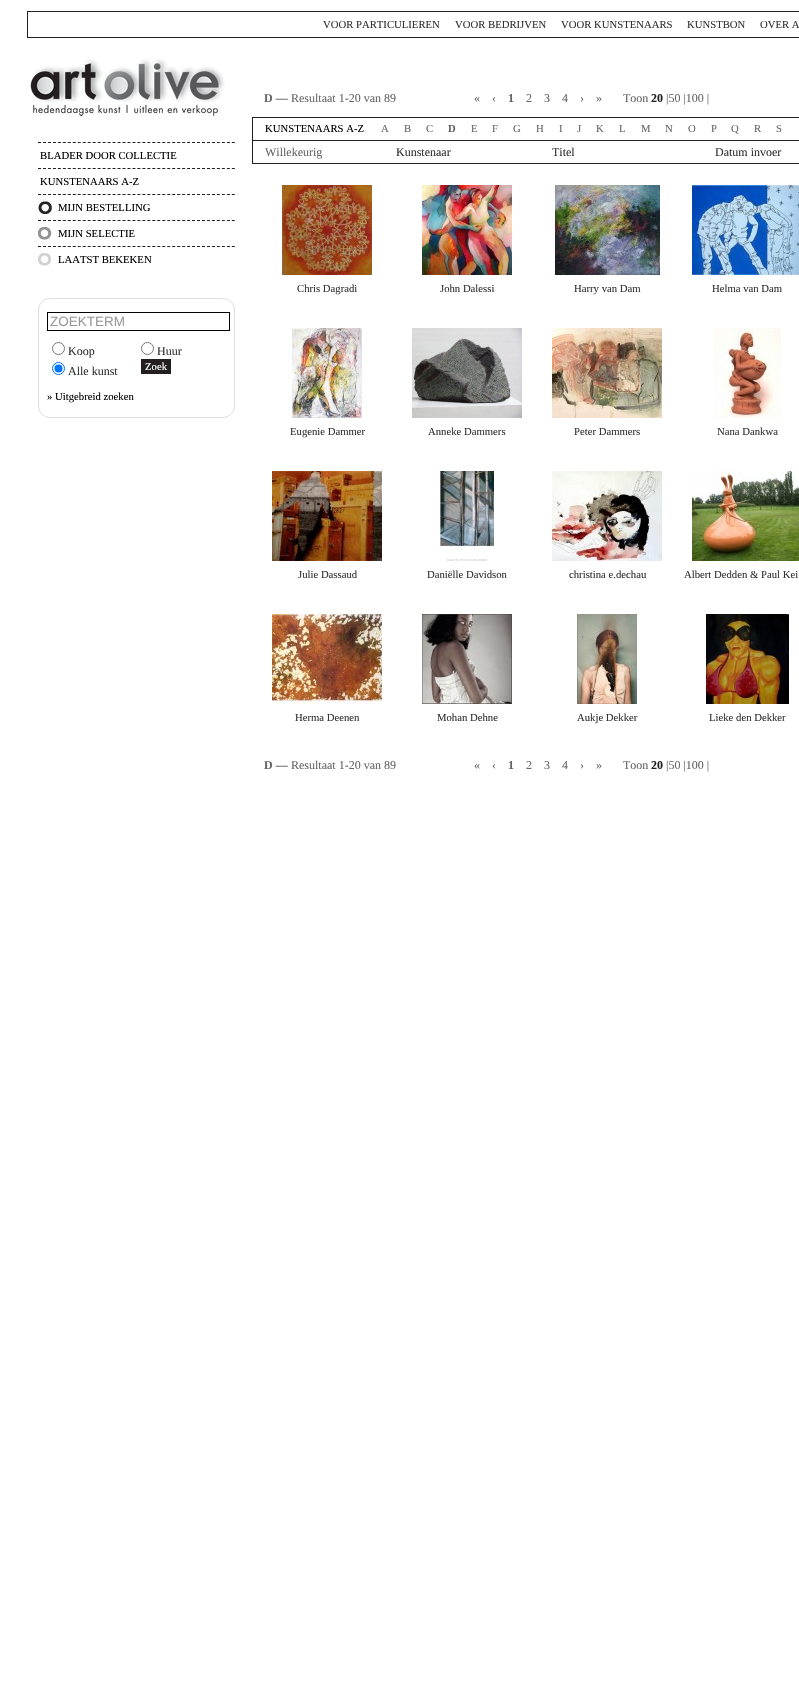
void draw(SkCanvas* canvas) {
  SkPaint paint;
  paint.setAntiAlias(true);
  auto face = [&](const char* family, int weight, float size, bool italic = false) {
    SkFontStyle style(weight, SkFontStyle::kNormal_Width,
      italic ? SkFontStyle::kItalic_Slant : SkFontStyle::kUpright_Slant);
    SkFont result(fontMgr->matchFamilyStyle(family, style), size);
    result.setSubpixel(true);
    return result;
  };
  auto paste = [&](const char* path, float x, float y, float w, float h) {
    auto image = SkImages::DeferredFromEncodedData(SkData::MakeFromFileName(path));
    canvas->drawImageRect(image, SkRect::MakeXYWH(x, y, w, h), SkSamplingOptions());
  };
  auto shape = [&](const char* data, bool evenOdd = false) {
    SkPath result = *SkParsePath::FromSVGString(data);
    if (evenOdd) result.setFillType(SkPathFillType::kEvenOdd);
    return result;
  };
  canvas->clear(0xffffffff);
  paint.setStroke(true);
  paint.setStrokeWidth(1);
  paint.setColor(0xff231f20);
  canvas->drawRect(SkRect::MakeXYWH(27.5f, 11.5f, 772, 26), paint);
  paste("img/1.png", 30, 59, 195, 57);
  paint.setPathEffect(SkDashPathEffect::Make({{3, 1.97f}}, 0));
  canvas->drawPath(shape("M38 142.5H235"), paint);
  paint.setPathEffect(nullptr);
  paint.setPathEffect(SkDashPathEffect::Make({{3, 1.97f}}, 0));
  canvas->drawPath(shape("M38 168.5H235"), paint);
  paint.setPathEffect(nullptr);
  paste("img/2.png", 38, 201, 14, 13);
  paint.setPathEffect(SkDashPathEffect::Make({{3, 1.97f}}, 0));
  canvas->drawPath(shape("M38 194.5H235"), paint);
  paint.setPathEffect(nullptr);
  paste("img/3.png", 38, 227, 14, 13);
  paint.setPathEffect(SkDashPathEffect::Make({{3, 1.97f}}, 0));
  canvas->drawPath(shape("M38 220.5H235"), paint);
  paint.setPathEffect(nullptr);
  paste("img/4.png", 38, 253, 14, 13);
  paint.setPathEffect(SkDashPathEffect::Make({{3, 1.97f}}, 0));
  canvas->drawPath(shape("M38 246.5H235"), paint);
  paint.setPathEffect(nullptr);
  paint.setColor(0xffdedede);
  canvas->drawRoundRect(SkRect::MakeXYWH(38.5f, 298.5f, 196, 119), 11.5f, 11.5f, paint);
  paint.setColor(0xff000000);
  canvas->drawRect(SkRect::MakeXYWH(47.5f, 312.5f, 182, 18), paint);
  paint.setColor(0xff767676);
  canvas->drawCircle(58.5f, 348.5f, 6, paint);
  canvas->drawCircle(147.5f, 348.5f, 6, paint);
  paint.setColor(0xff0075ff);
  canvas->drawCircle(58.5f, 368.5f, 6, paint);
  paint.setStroke(false);
  canvas->drawCircle(58.5f, 368.5f, 4, paint);
  {
    const struct { float x, y, w, h; SkColor color; } items[] = {
      {141, 359, 30, 15, 0xff231f20},
      {252, 117, 547, 1, 0xff231f20},
      {252, 117, 1, 23, 0xff231f20},
    };
    for (auto [x, y, w, h, color] : items) {
      paint.setColor(color);
      canvas->drawRect(SkRect::MakeXYWH(x, y, w, h), paint);
    }
  }
  paint.setStroke(true);
  canvas->drawRect(SkRect::MakeXYWH(252.5f, 140.5f, 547, 23), paint);
  paste("img/5.png", 282, 185, 90, 90);
  paste("img/6.png", 422, 185, 90, 90);
  paste("img/7.png", 555, 185, 105, 90);
  paste("img/8.png", 692, 185, 107, 90);
  paste("img/9.png", 292, 328, 70, 90);
  paste("img/10.png", 412, 328, 110, 90);
  paste("img/11.png", 552, 328, 110, 90);
  paste("img/12.png", 714, 328, 67, 90);
  paste("img/13.png", 272, 471, 110, 90);
  paste("img/14.png", 440, 471, 54, 90);
  paste("img/15.png", 552, 471, 110, 90);
  paste("img/16.png", 692, 471, 107, 90);
  paste("img/17.png", 272, 614, 110, 90);
  paste("img/18.png", 422, 614, 90, 90);
  paste("img/19.png", 577, 614, 60, 90);
  paste("img/20.png", 706, 614, 83, 90);
  auto f0 = face("Liberation Serif", 400, 10.7f);
  paint.setStroke(false);
  paint.setColor(0xff333333);
  {
    const struct { const char* s; float x, y; } items[] = {
      {"VOOR PARTICULIEREN", 323, 28},
      {"VOOR BEDRIJVEN", 455, 28},
      {"VOOR KUNSTENAARS", 561, 28},
      {"KUNSTBON", 687, 28},
      {"OVER A", 760, 28},
    };
    for (auto [s, x, y] : items) {
      canvas->drawString(s, x, y, f0, paint);
    }
  }
  paint.setColor(0xff000000);
  {
    const struct { const char* s; float x, y; } items[] = {
      {"BLADER DOOR COLLECTIE", 40, 159},
      {"KUNSTENAARS A-Z", 40, 185},
      {"MIJN BESTELLING", 58, 211},
      {"MIJN SELECTIE", 58, 237},
      {"LAATST BEKEKEN", 58, 263},
    };
    for (auto [s, x, y] : items) {
      canvas->drawString(s, x, y, f0, paint);
    }
  }
  auto f1 = face("Liberation Sans", 400, 13.5f);
  paint.setColor(0xff999999);
  canvas->drawString("ZOEKTERM", 50, 326, f1, paint);
  auto f2 = face("Liberation Serif", 400, 12);
  paint.setColor(0xff333333);
  {
    const struct { const char* s; float x, y; } items[] = {
      {"Koop", 68, 355},
      {"Huur", 157, 355},
      {"Alle kunst", 68, 375},
    };
    for (auto [s, x, y] : items) {
      canvas->drawString(s, x, y, f2, paint);
    }
  }
  paint.setColor(0xffffffff);
  canvas->drawString("Zoek", 145, 370, f0, paint);
  paint.setColor(0xff000000);
  canvas->drawString("» Uitgebreid zoeken", 47, 400, f0, paint);
  auto f3 = face("Liberation Serif", 700, 12);
  paint.setColor(0xff666566);
  canvas->drawString("D —", 264, 102, f3, paint);
  {
    const struct { const char* s; float x, y; } items[] = {
      {"Resultaat 1-20 van 89", 291, 102},
      {"«", 474, 102},
      {"‹", 492, 102},
    };
    for (auto [s, x, y] : items) {
      canvas->drawString(s, x, y, f2, paint);
    }
  }
  canvas->drawString("1", 508, 102, f3, paint);
  {
    const struct { const char* s; float x, y; } items[] = {
      {"2", 526, 102},
      {"3", 544, 102},
      {"4", 562, 102},
      {"›", 580, 102},
      {"»", 596, 102},
      {"Toon", 623, 102},
    };
    for (auto [s, x, y] : items) {
      canvas->drawString(s, x, y, f2, paint);
    }
  }
  paint.setColor(0xff231f20);
  canvas->drawString("20", 651, 102, f3, paint);
  paint.setColor(0xff666566);
  canvas->drawString("|50 |100 |", 666, 102, f2, paint);
  paint.setColor(0xff000000);
  canvas->drawString("KUNSTENAARS A-Z", 265, 132, f0, paint);
  paint.setColor(0xff666566);
  {
    const struct { const char* s; float x, y; } items[] = {
      {"A", 381, 132},
      {"B", 404, 132},
      {"C", 426, 132},
    };
    for (auto [s, x, y] : items) {
      canvas->drawString(s, x, y, f0, paint);
    }
  }
  auto f4 = face("Liberation Serif", 700, 10.7f);
  canvas->drawString("D", 448, 132, f4, paint);
  {
    const struct { const char* s; float x, y; } items[] = {
      {"E", 471, 132},
      {"F", 492, 132},
      {"G", 513, 132},
      {"H", 536, 132},
      {"I", 559, 132},
      {"J", 577, 132},
      {"K", 596, 132},
      {"L", 619, 132},
      {"M", 641, 132},
      {"N", 665, 132},
      {"O", 688, 132},
      {"P", 711, 132},
      {"Q", 731, 132},
      {"R", 754, 132},
      {"S", 776, 132},
    };
    for (auto [s, x, y] : items) {
      canvas->drawString(s, x, y, f0, paint);
    }
  }
  canvas->drawString("Willekeurig", 265, 156, f2, paint);
  paint.setColor(0xff333333);
  {
    const struct { const char* s; float x, y; } items[] = {
      {"Kunstenaar", 396, 156},
      {"Titel", 552, 156},
      {"Datum invoer", 715, 156},
    };
    for (auto [s, x, y] : items) {
      canvas->drawString(s, x, y, f2, paint);
    }
  }
  {
    const struct { const char* s; float x, y; } items[] = {
      {"Chris Dagradi", 297, 292},
      {"John Dalessi", 440, 292},
      {"Harry van Dam", 574, 292},
      {"Helma van Dam", 712, 292},
      {"Eugenie Dammer", 290, 435},
      {"Anneke Dammers", 428, 435},
      {"Peter Dammers", 574, 435},
      {"Nana Dankwa", 717, 435},
      {"Julie Dassaud", 298, 578},
      {"Daniëlle Davidson", 427, 578},
      {"christina e.dechau", 569, 578},
      {"Albert Dedden & Paul Kei", 684, 578},
      {"Herma Deenen", 295, 721},
      {"Mohan Dehne", 437, 721},
      {"Aukje Dekker", 577, 721},
      {"Lieke den Dekker", 709, 721},
    };
    for (auto [s, x, y] : items) {
      canvas->drawString(s, x, y, f0, paint);
    }
  }
  paint.setColor(0xff666566);
  canvas->drawString("D —", 264, 769, f3, paint);
  {
    const struct { const char* s; float x, y; } items[] = {
      {"Resultaat 1-20 van 89", 291, 769},
      {"«", 474, 769},
      {"‹", 492, 769},
    };
    for (auto [s, x, y] : items) {
      canvas->drawString(s, x, y, f2, paint);
    }
  }
  canvas->drawString("1", 508, 769, f3, paint);
  {
    const struct { const char* s; float x, y; } items[] = {
      {"2", 526, 769},
      {"3", 544, 769},
      {"4", 562, 769},
      {"›", 580, 769},
      {"»", 596, 769},
      {"Toon", 623, 769},
    };
    for (auto [s, x, y] : items) {
      canvas->drawString(s, x, y, f2, paint);
    }
  }
  paint.setColor(0xff231f20);
  canvas->drawString("20", 651, 769, f3, paint);
  paint.setColor(0xff666566);
  canvas->drawString("|50 |100 |", 666, 769, f2, paint);
}
